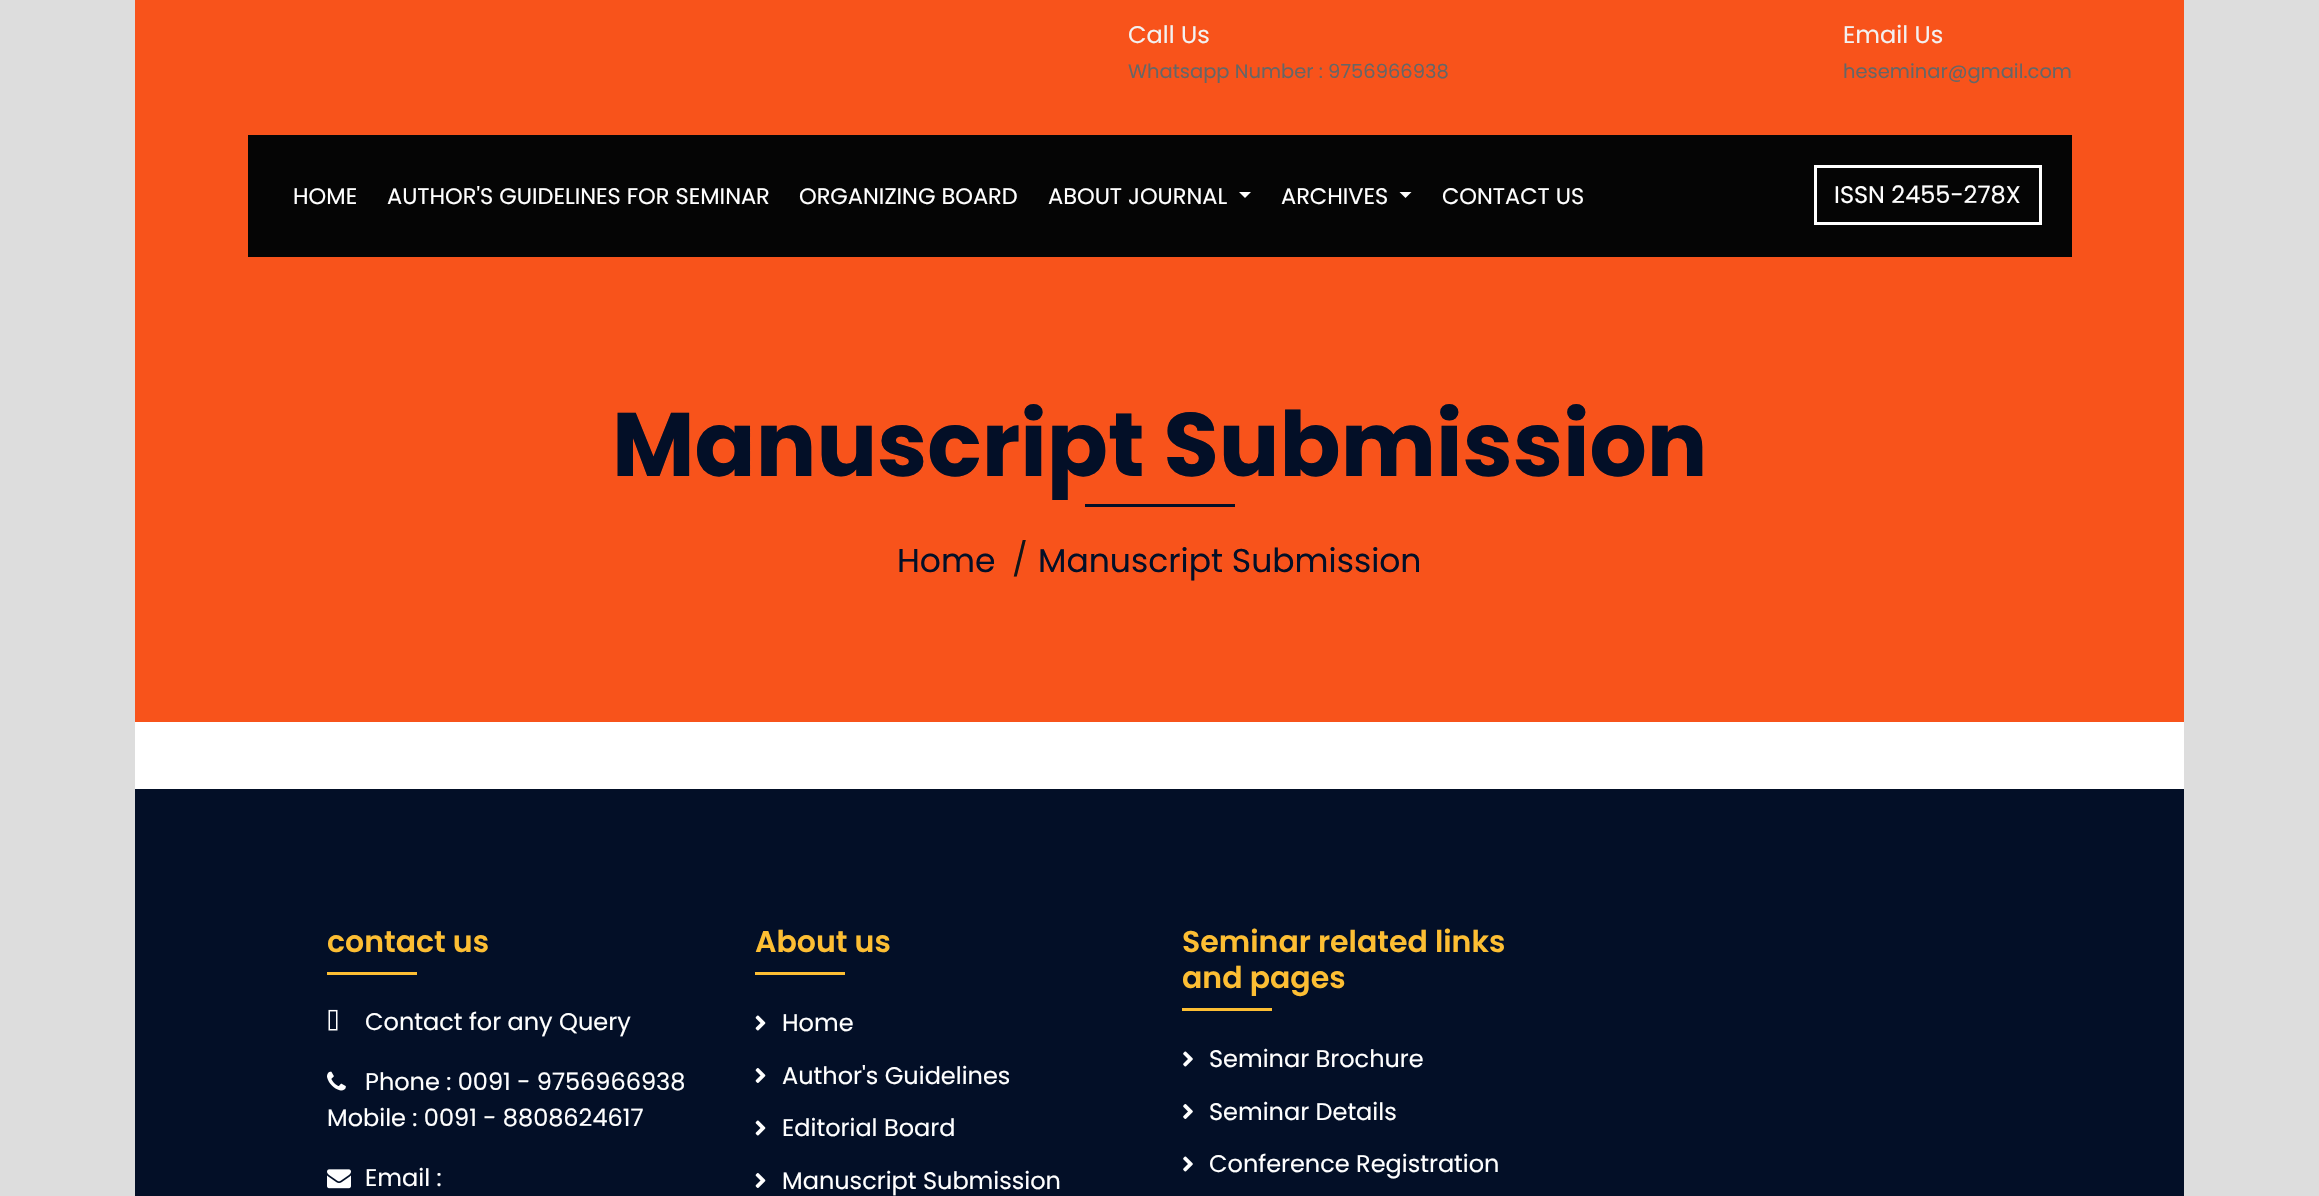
void draw(SkCanvas* canvas) {
  SkPaint paint;
  paint.setAntiAlias(true);
  auto face = [&](const char* family, int weight, float size, bool italic = false) {
    SkFontStyle style(weight, SkFontStyle::kNormal_Width,
      italic ? SkFontStyle::kItalic_Slant : SkFontStyle::kUpright_Slant);
    SkFont result(fontMgr->matchFamilyStyle(family, style), size);
    result.setSubpixel(true);
    return result;
  };
  auto paste = [&](const char* path, float x, float y, float w, float h) {
    auto image = SkImages::DeferredFromEncodedData(SkData::MakeFromFileName(path));
    canvas->drawImageRect(image, SkRect::MakeXYWH(x, y, w, h), SkSamplingOptions());
  };
  auto shape = [&](const char* data, bool evenOdd = false) {
    SkPath result = *SkParsePath::FromSVGString(data);
    if (evenOdd) result.setFillType(SkPathFillType::kEvenOdd);
    return result;
  };
  canvas->clear(0xffdddddd);
  {
    const struct { float x, y, w, h; SkColor color; } items[] = {
      {135, 722, 2049, 67, 0xffffffff},
      {135, 0, 2049, 722, 0xfff8531b},
      {248, 135, 1824, 122, 0xff050505},
    };
    for (auto [x, y, w, h, color] : items) {
      paint.setColor(color);
      canvas->drawRect(SkRect::MakeXYWH(x, y, w, h), paint);
    }
  }
  paint.setColor(0xffffffff);
  canvas->drawPath(shape("M1239 192H1251L1245 198Z"), paint);
  canvas->drawPath(shape("M1399.5 192H1411.5L1405.5 198Z"), paint);
  paint.setStroke(true);
  paint.setStrokeWidth(3);
  canvas->drawRect(SkRect::MakeXYWH(1815.5f, 166.5f, 225, 57), paint);
  paint.setStroke(false);
  {
    const struct { float x, y, w, h; SkColor color; } items[] = {
      {1085, 504, 150, 3, 0xff030f27},
      {135, 789, 2049, 407, 0xff030f27},
      {327, 972, 90, 3, 0xfffdbe33},
    };
    for (auto [x, y, w, h, color] : items) {
      paint.setColor(color);
      canvas->drawRect(SkRect::MakeXYWH(x, y, w, h), paint);
    }
  }
  paste("img/1.png", 328, 1009, 10, 22);
  paste("img/2.png", 327, 1071, 19, 20);
  paste("img/3.png", 327, 1169, 24, 20);
  canvas->drawRect(SkRect::MakeXYWH(755, 972, 90, 3), paint);
  paste("img/4.png", 755, 1015, 11, 16);
  paste("img/5.png", 755, 1068, 11, 15);
  paste("img/4.png", 755, 1120, 11, 16);
  paste("img/5.png", 755, 1173, 11, 15);
  canvas->drawRect(SkRect::MakeXYWH(1182, 1008, 90, 3), paint);
  paste("img/6.png", 1183, 1051, 10, 16);
  paste("img/7.png", 1183, 1104, 10, 15);
  paste("img/6.png", 1183, 1156, 10, 16);
  auto f0 = face("Poppins", 400, 24);
  paint.setColor(0xfff3f1f1);
  canvas->drawString("Call Us", 1128, 43, f0, paint);
  auto f1 = face("Poppins", 400, 19.5f);
  paint.setColor(0xff666666);
  canvas->drawString("Whatsapp Number : 9756966938", 1128, 78, f1, paint);
  paint.setColor(0xfff3f1f1);
  canvas->drawString("Email Us", 1843, 43, f0, paint);
  paint.setColor(0xff666666);
  canvas->drawString("heseminar@gmail.com", 1843, 78, f1, paint);
  auto f2 = face("Poppins", 400, 22.5f);
  paint.setColor(0xffffffff);
  {
    const struct { const char* s; float x, y; } items[] = {
      {"HOME", 293, 204},
      {"AUTHOR'S GUIDELINES FOR SEMINAR", 387, 204},
      {"ORGANIZING BOARD", 799, 204},
      {"ABOUT JOURNAL", 1048, 204},
      {"ARCHIVES", 1281, 204},
      {"CONTACT US", 1442, 204},
    };
    for (auto [s, x, y] : items) {
      canvas->drawString(s, x, y, f2, paint);
    }
  }
  canvas->drawString("ISSN 2455-278X", 1834, 203, f0, paint);
  auto f3 = face("Poppins", 700, 90);
  paint.setColor(0xff030f27);
  canvas->drawString("Manuscript Submission", 612, 476, f3, paint);
  auto f4 = face("Poppins", 400, 33);
  canvas->drawString("Home", 897, 572, f4, paint);
  paint.setColor(0xff121518);
  canvas->drawString("/", 1012, 571, f4, paint);
  paint.setColor(0xff030f27);
  canvas->drawString("Manuscript Submission", 1038, 572, f4, paint);
  auto f5 = face("Poppins", 600, 30);
  paint.setColor(0xfffdbe33);
  canvas->drawString("contact us", 327, 952, f5, paint);
  paint.setColor(0xffffffff);
  {
    const struct { const char* s; float x, y; } items[] = {
      {"Contact for any Query", 365, 1030},
      {"Phone : 0091 - 9756966938", 365, 1090},
      {"Mobile : 0091 - 8808624617", 327, 1126},
      {"Email :", 365, 1186},
    };
    for (auto [s, x, y] : items) {
      canvas->drawString(s, x, y, f0, paint);
    }
  }
  paint.setColor(0xfffdbe33);
  canvas->drawString("About us", 755, 952, f5, paint);
  paint.setColor(0xffffffff);
  {
    const struct { const char* s; float x, y; } items[] = {
      {"Home", 782, 1031},
      {"Author's Guidelines", 782, 1084},
      {"Editorial Board", 782, 1136},
      {"Manuscript Submission", 782, 1189},
    };
    for (auto [s, x, y] : items) {
      canvas->drawString(s, x, y, f0, paint);
    }
  }
  paint.setColor(0xfffdbe33);
  canvas->drawString("Seminar related links", 1182, 952, f5, paint);
  canvas->drawString("and pages", 1182, 988, f5, paint);
  paint.setColor(0xffffffff);
  {
    const struct { const char* s; float x, y; } items[] = {
      {"Seminar Brochure", 1209, 1067},
      {"Seminar Details", 1209, 1120},
      {"Conference Registration", 1209, 1172},
    };
    for (auto [s, x, y] : items) {
      canvas->drawString(s, x, y, f0, paint);
    }
  }
}
